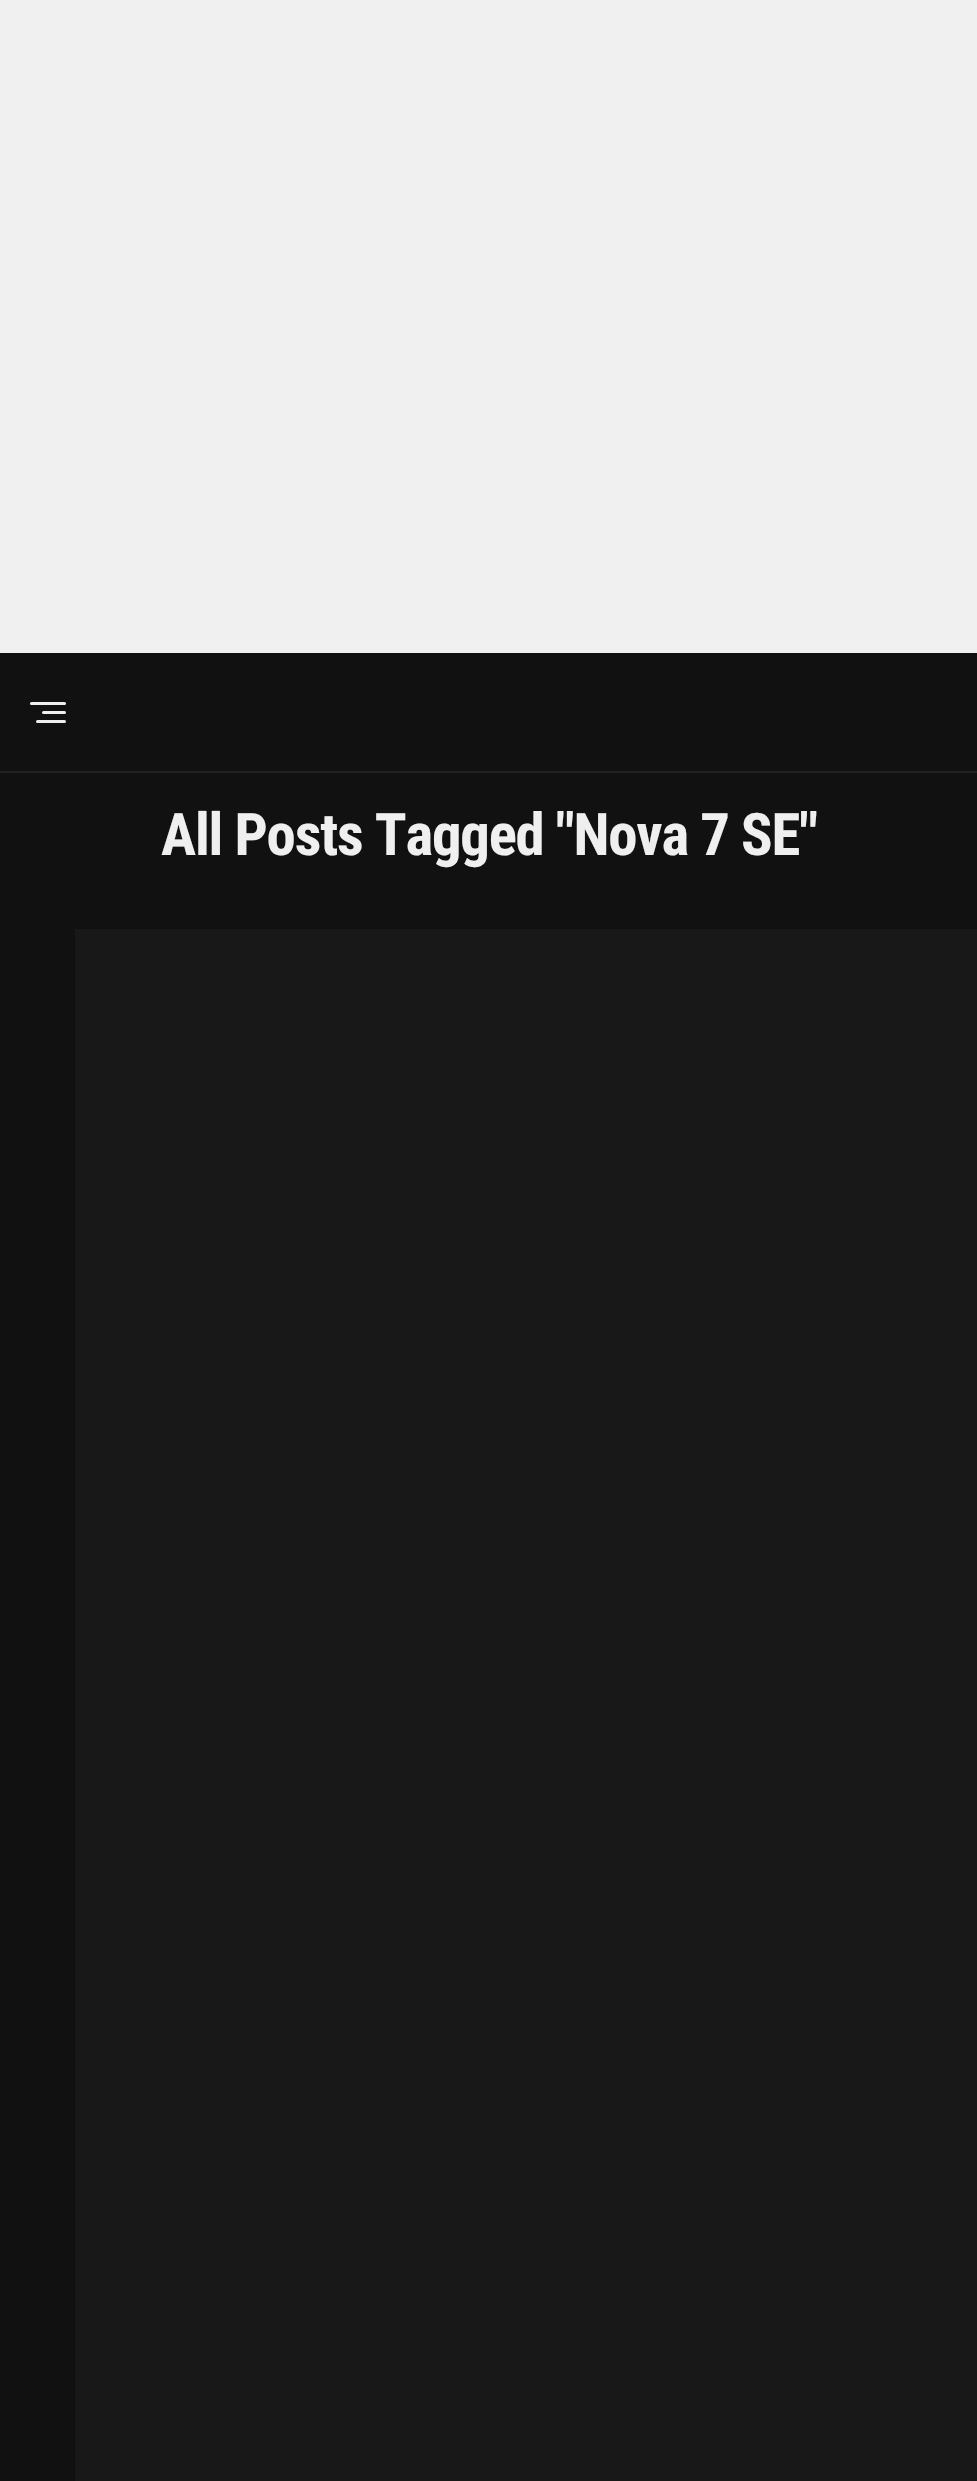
void draw(SkCanvas* canvas) {
  SkPaint paint;
  paint.setAntiAlias(true);
  auto face = [&](const char* family, int weight, float size, bool italic = false) {
    SkFontStyle style(weight, SkFontStyle::kNormal_Width,
      italic ? SkFontStyle::kItalic_Slant : SkFontStyle::kUpright_Slant);
    SkFont result(fontMgr->matchFamilyStyle(family, style), size);
    result.setSubpixel(true);
    return result;
  };
  auto writeSpaced = [&](const char* s, float x, float y, const SkFont& font, const SkPaint& ink, float letter, float word) {
    std::vector<SkGlyphID> glyphs(font.countText(s, strlen(s), SkTextEncoding::kUTF8));
    std::vector<float> xs(glyphs.size());
    font.textToGlyphs(s, strlen(s), SkTextEncoding::kUTF8, glyphs);
    font.getXPos(glyphs, xs, x);
    float extra = 0;
    for (size_t i = 0; i < glyphs.size(); i++) {
      xs[i] += extra;
      extra += letter + word * (glyphs[i] == font.unicharToGlyph(' '));
    }
    canvas->drawTextBlob(SkTextBlob::MakeFromPosHGlyphs(glyphs, xs, y, font), 0, 0, ink);
  };
  canvas->clear(0xff111111);
  paint.setColor(0xfff0f0f0);
  canvas->drawRect(SkRect::MakeXYWH(0, 0, 977, 653), paint);
  paint.setColor(0xff222222);
  canvas->drawRect(SkRect::MakeXYWH(0, 771, 977, 2), paint);
  paint.setColor(0xffefefef);
  canvas->drawRoundRect(SkRect::MakeXYWH(30, 702, 36, 3), 1.5f, 1.5f, paint);
  canvas->drawRoundRect(SkRect::MakeXYWH(42, 711, 24, 3), 1.5f, 1.5f, paint);
  canvas->drawRoundRect(SkRect::MakeXYWH(36, 720, 30, 3), 1.5f, 1.5f, paint);
  paint.setColor(0xff181818);
  canvas->drawRect(SkRect::MakeXYWH(75, 929, 902, 1552), paint);
  auto f0 = face("Roboto Condensed", 700, 58.75f);
  paint.setColor(0xffefefef);
  writeSpaced("All Posts Tagged \"Nova 7 SE\"", 161, 855, f0, paint, -1.2f, 0);
}
